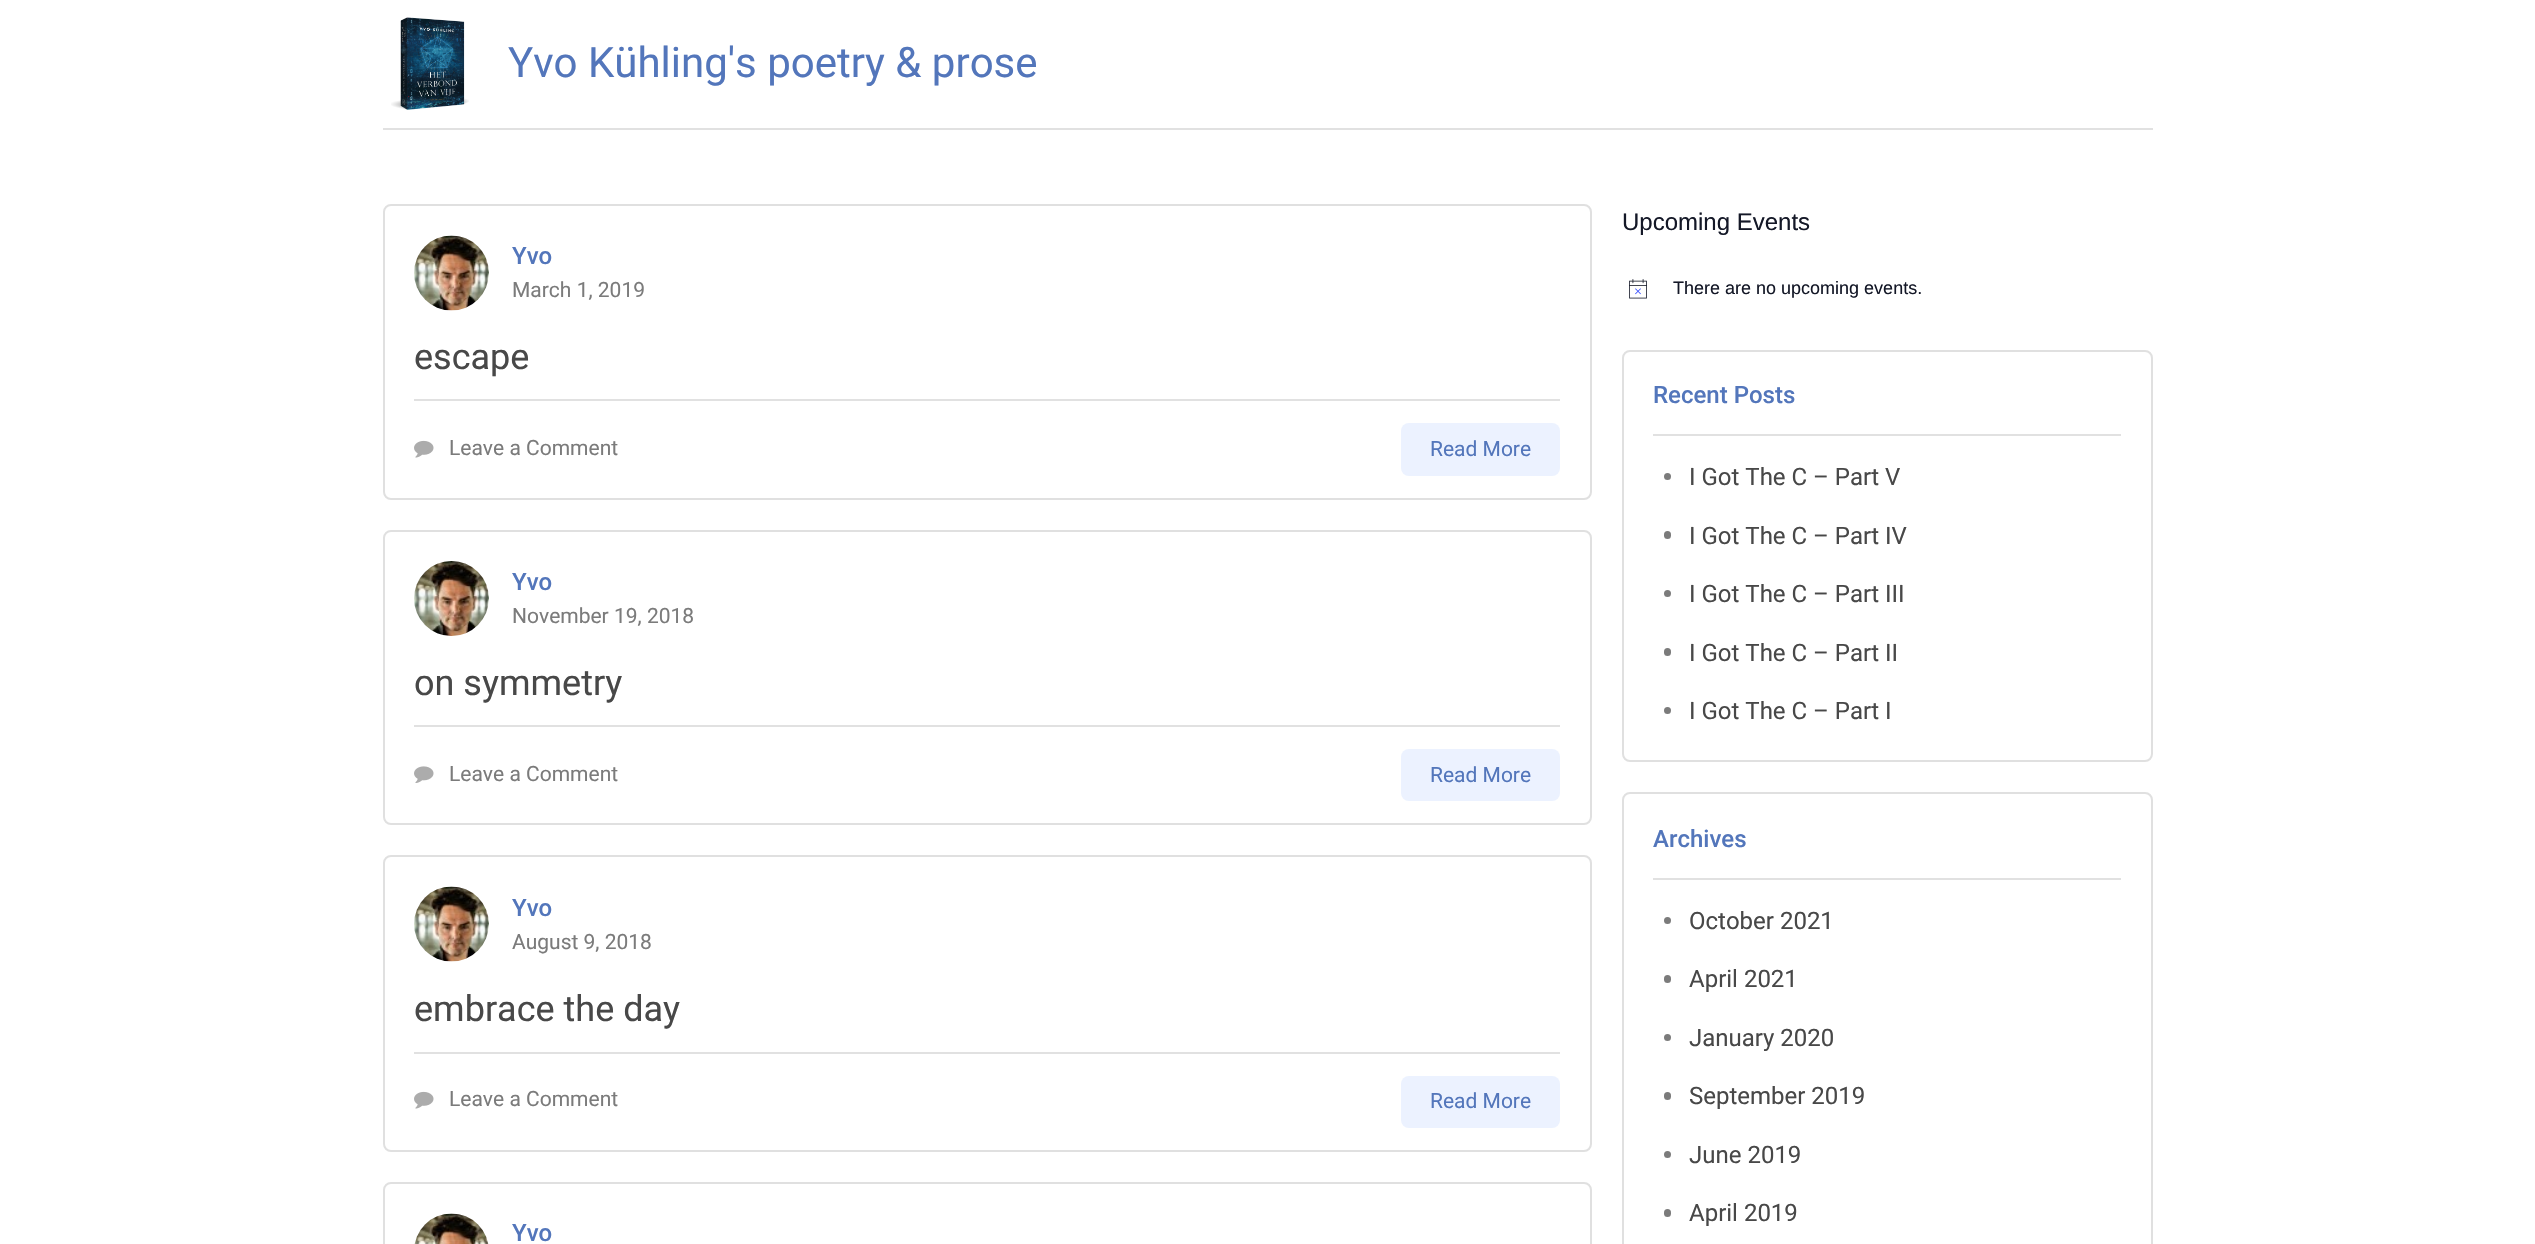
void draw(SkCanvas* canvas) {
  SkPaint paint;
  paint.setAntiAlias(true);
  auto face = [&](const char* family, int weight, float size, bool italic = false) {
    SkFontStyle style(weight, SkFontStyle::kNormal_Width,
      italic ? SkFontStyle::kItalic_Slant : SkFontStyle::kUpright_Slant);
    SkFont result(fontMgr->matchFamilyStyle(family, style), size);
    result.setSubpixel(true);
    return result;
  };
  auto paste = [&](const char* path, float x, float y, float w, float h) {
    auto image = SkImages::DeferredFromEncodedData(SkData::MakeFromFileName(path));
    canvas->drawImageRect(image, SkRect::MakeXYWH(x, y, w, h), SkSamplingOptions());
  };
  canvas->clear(0xffffffff);
  paint.setColor(0xffe1e1e1);
  canvas->drawRect(SkRect::MakeXYWH(383, 128, 1770, 2), paint);
  paste("img/1.png", 391, 17, 78, 93);
  paint.setStroke(true);
  paint.setStrokeWidth(2);
  paint.setColor(0xffe0e0e0);
  canvas->drawRoundRect(SkRect::MakeXYWH(384, 205, 1207, 294), 7, 7, paint);
  paste("img/2.png", 414, 235, 75, 76);
  paint.setStroke(false);
  paint.setColor(0xffe1e1e1);
  canvas->drawRect(SkRect::MakeXYWH(414, 399, 1146, 2), paint);
  paste("img/3.png", 414, 440, 20, 18);
  paint.setColor(0xffecf2ff);
  canvas->drawRoundRect(SkRect::MakeXYWH(1401, 423, 159, 53), 8, 8, paint);
  paint.setStroke(true);
  paint.setColor(0xffe0e0e0);
  canvas->drawRoundRect(SkRect::MakeXYWH(384, 531, 1207, 293), 7, 7, paint);
  paste("img/4.png", 414, 561, 75, 75);
  paint.setStroke(false);
  paint.setColor(0xffe1e1e1);
  canvas->drawRect(SkRect::MakeXYWH(414, 725, 1146, 2), paint);
  paste("img/5.png", 414, 766, 20, 17);
  paint.setColor(0xffecf2ff);
  canvas->drawRoundRect(SkRect::MakeXYWH(1401, 749, 159, 52), 8, 8, paint);
  paint.setStroke(true);
  paint.setColor(0xffe0e0e0);
  canvas->drawRoundRect(SkRect::MakeXYWH(384, 856, 1207, 295), 7, 7, paint);
  paste("img/6.png", 414, 886, 75, 76);
  paint.setStroke(false);
  paint.setColor(0xffe1e1e1);
  canvas->drawRect(SkRect::MakeXYWH(414, 1052, 1146, 2), paint);
  paste("img/3.png", 414, 1091, 20, 18);
  paint.setColor(0xffecf2ff);
  canvas->drawRoundRect(SkRect::MakeXYWH(1401, 1076, 159, 52), 8, 8, paint);
  paint.setStroke(true);
  paint.setColor(0xffe0e0e0);
  canvas->drawRoundRect(SkRect::MakeXYWH(384, 1183, 1207, 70), 7, 7, paint);
  paste("img/7.png", 414, 1213, 75, 31);
  paste("img/8.png", 1629, 279, 18, 20);
  canvas->drawRoundRect(SkRect::MakeXYWH(1623, 351, 529, 410), 7, 7, paint);
  paint.setStroke(false);
  paint.setColor(0xffe1e1e1);
  canvas->drawRect(SkRect::MakeXYWH(1653, 434, 468, 2), paint);
  paint.setColor(0xff7b7b7b);
  canvas->drawCircle(1667.5f, 476.5f, 3.5f, paint);
  canvas->drawRoundRect(SkRect::MakeXYWH(1664, 531, 7, 8), 3.5f, 3.5f, paint);
  canvas->drawCircle(1667.5f, 593.5f, 3.5f, paint);
  canvas->drawRoundRect(SkRect::MakeXYWH(1664, 648, 7, 8), 3.5f, 3.5f, paint);
  canvas->drawCircle(1667.5f, 710.5f, 3.5f, paint);
  paint.setStroke(true);
  paint.setColor(0xffe0e0e0);
  canvas->drawRoundRect(SkRect::MakeXYWH(1623, 793, 529, 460), 7, 7, paint);
  paint.setStroke(false);
  paint.setColor(0xffe1e1e1);
  canvas->drawRect(SkRect::MakeXYWH(1653, 878, 468, 2), paint);
  paint.setColor(0xff7b7b7b);
  canvas->drawCircle(1667.5f, 920.5f, 3.5f, paint);
  canvas->drawRoundRect(SkRect::MakeXYWH(1664, 975, 7, 8), 3.5f, 3.5f, paint);
  canvas->drawCircle(1667.5f, 1037.5f, 3.5f, paint);
  canvas->drawRoundRect(SkRect::MakeXYWH(1664, 1092, 7, 8), 3.5f, 3.5f, paint);
  canvas->drawCircle(1667.5f, 1154.5f, 3.5f, paint);
  canvas->drawRoundRect(SkRect::MakeXYWH(1664, 1209, 7, 8), 3.5f, 3.5f, paint);
  auto f0 = face("Roboto", 400, 42);
  paint.setColor(0xff5376bb);
  canvas->drawString("Yvo Kühling's poetry & prose", 508, 77, f0, paint);
  auto f1 = face("Roboto", 500, 24);
  canvas->drawString("Yvo", 512, 264, f1, paint);
  auto f2 = face("Roboto", 400, 21);
  paint.setColor(0xff7b7b7b);
  canvas->drawString("March 1, 2019", 512, 297, f2, paint);
  auto f3 = face("Roboto", 400, 36);
  paint.setColor(0xff484848);
  canvas->drawString("escape", 414, 369, f3, paint);
  paint.setColor(0xff7b7b7b);
  canvas->drawString("Leave a Comment", 449, 455, f2, paint);
  paint.setColor(0xff5376bb);
  canvas->drawString("Read More", 1430, 456, f2, paint);
  canvas->drawString("Yvo", 512, 590, f1, paint);
  paint.setColor(0xff7b7b7b);
  canvas->drawString("November 19, 2018", 512, 623, f2, paint);
  paint.setColor(0xff484848);
  canvas->drawString("on symmetry", 414, 695, f3, paint);
  paint.setColor(0xff7b7b7b);
  canvas->drawString("Leave a Comment", 449, 781, f2, paint);
  paint.setColor(0xff5376bb);
  canvas->drawString("Read More", 1430, 782, f2, paint);
  canvas->drawString("Yvo", 512, 916, f1, paint);
  paint.setColor(0xff7b7b7b);
  canvas->drawString("August 9, 2018", 512, 949, f2, paint);
  paint.setColor(0xff484848);
  canvas->drawString("embrace the day", 414, 1021, f3, paint);
  paint.setColor(0xff7b7b7b);
  canvas->drawString("Leave a Comment", 449, 1106, f2, paint);
  paint.setColor(0xff5376bb);
  canvas->drawString("Read More", 1430, 1108, f2, paint);
  canvas->drawString("Yvo", 512, 1241, f1, paint);
  auto f4 = face("Liberation Sans", 400, 24);
  paint.setColor(0xff141827);
  canvas->drawString("Upcoming Events", 1622, 230, f4, paint);
  auto f5 = face("Liberation Sans", 400, 18);
  canvas->drawString("There are no upcoming events.", 1673, 294, f5, paint);
  paint.setColor(0xff5376bb);
  canvas->drawString("Recent Posts", 1653, 403, f1, paint);
  auto f6 = face("Roboto", 400, 24);
  paint.setColor(0xff484848);
  {
    const struct { const char* s; float x, y; } items[] = {
      {"I Got The C – Part V", 1689, 485},
      {"I Got The C – Part IV", 1689, 544},
      {"I Got The C – Part III", 1689, 602},
      {"I Got The C – Part II", 1689, 661},
      {"I Got The C – Part I", 1689, 719},
    };
    for (auto [s, x, y] : items) {
      canvas->drawString(s, x, y, f6, paint);
    }
  }
  paint.setColor(0xff5376bb);
  canvas->drawString("Archives", 1653, 847, f1, paint);
  paint.setColor(0xff484848);
  {
    const struct { const char* s; float x, y; } items[] = {
      {"October 2021", 1689, 929},
      {"April 2021", 1689, 987},
      {"January 2020", 1689, 1046},
      {"September 2019", 1689, 1104},
      {"June 2019", 1689, 1163},
      {"April 2019", 1689, 1221},
    };
    for (auto [s, x, y] : items) {
      canvas->drawString(s, x, y, f6, paint);
    }
  }
}
